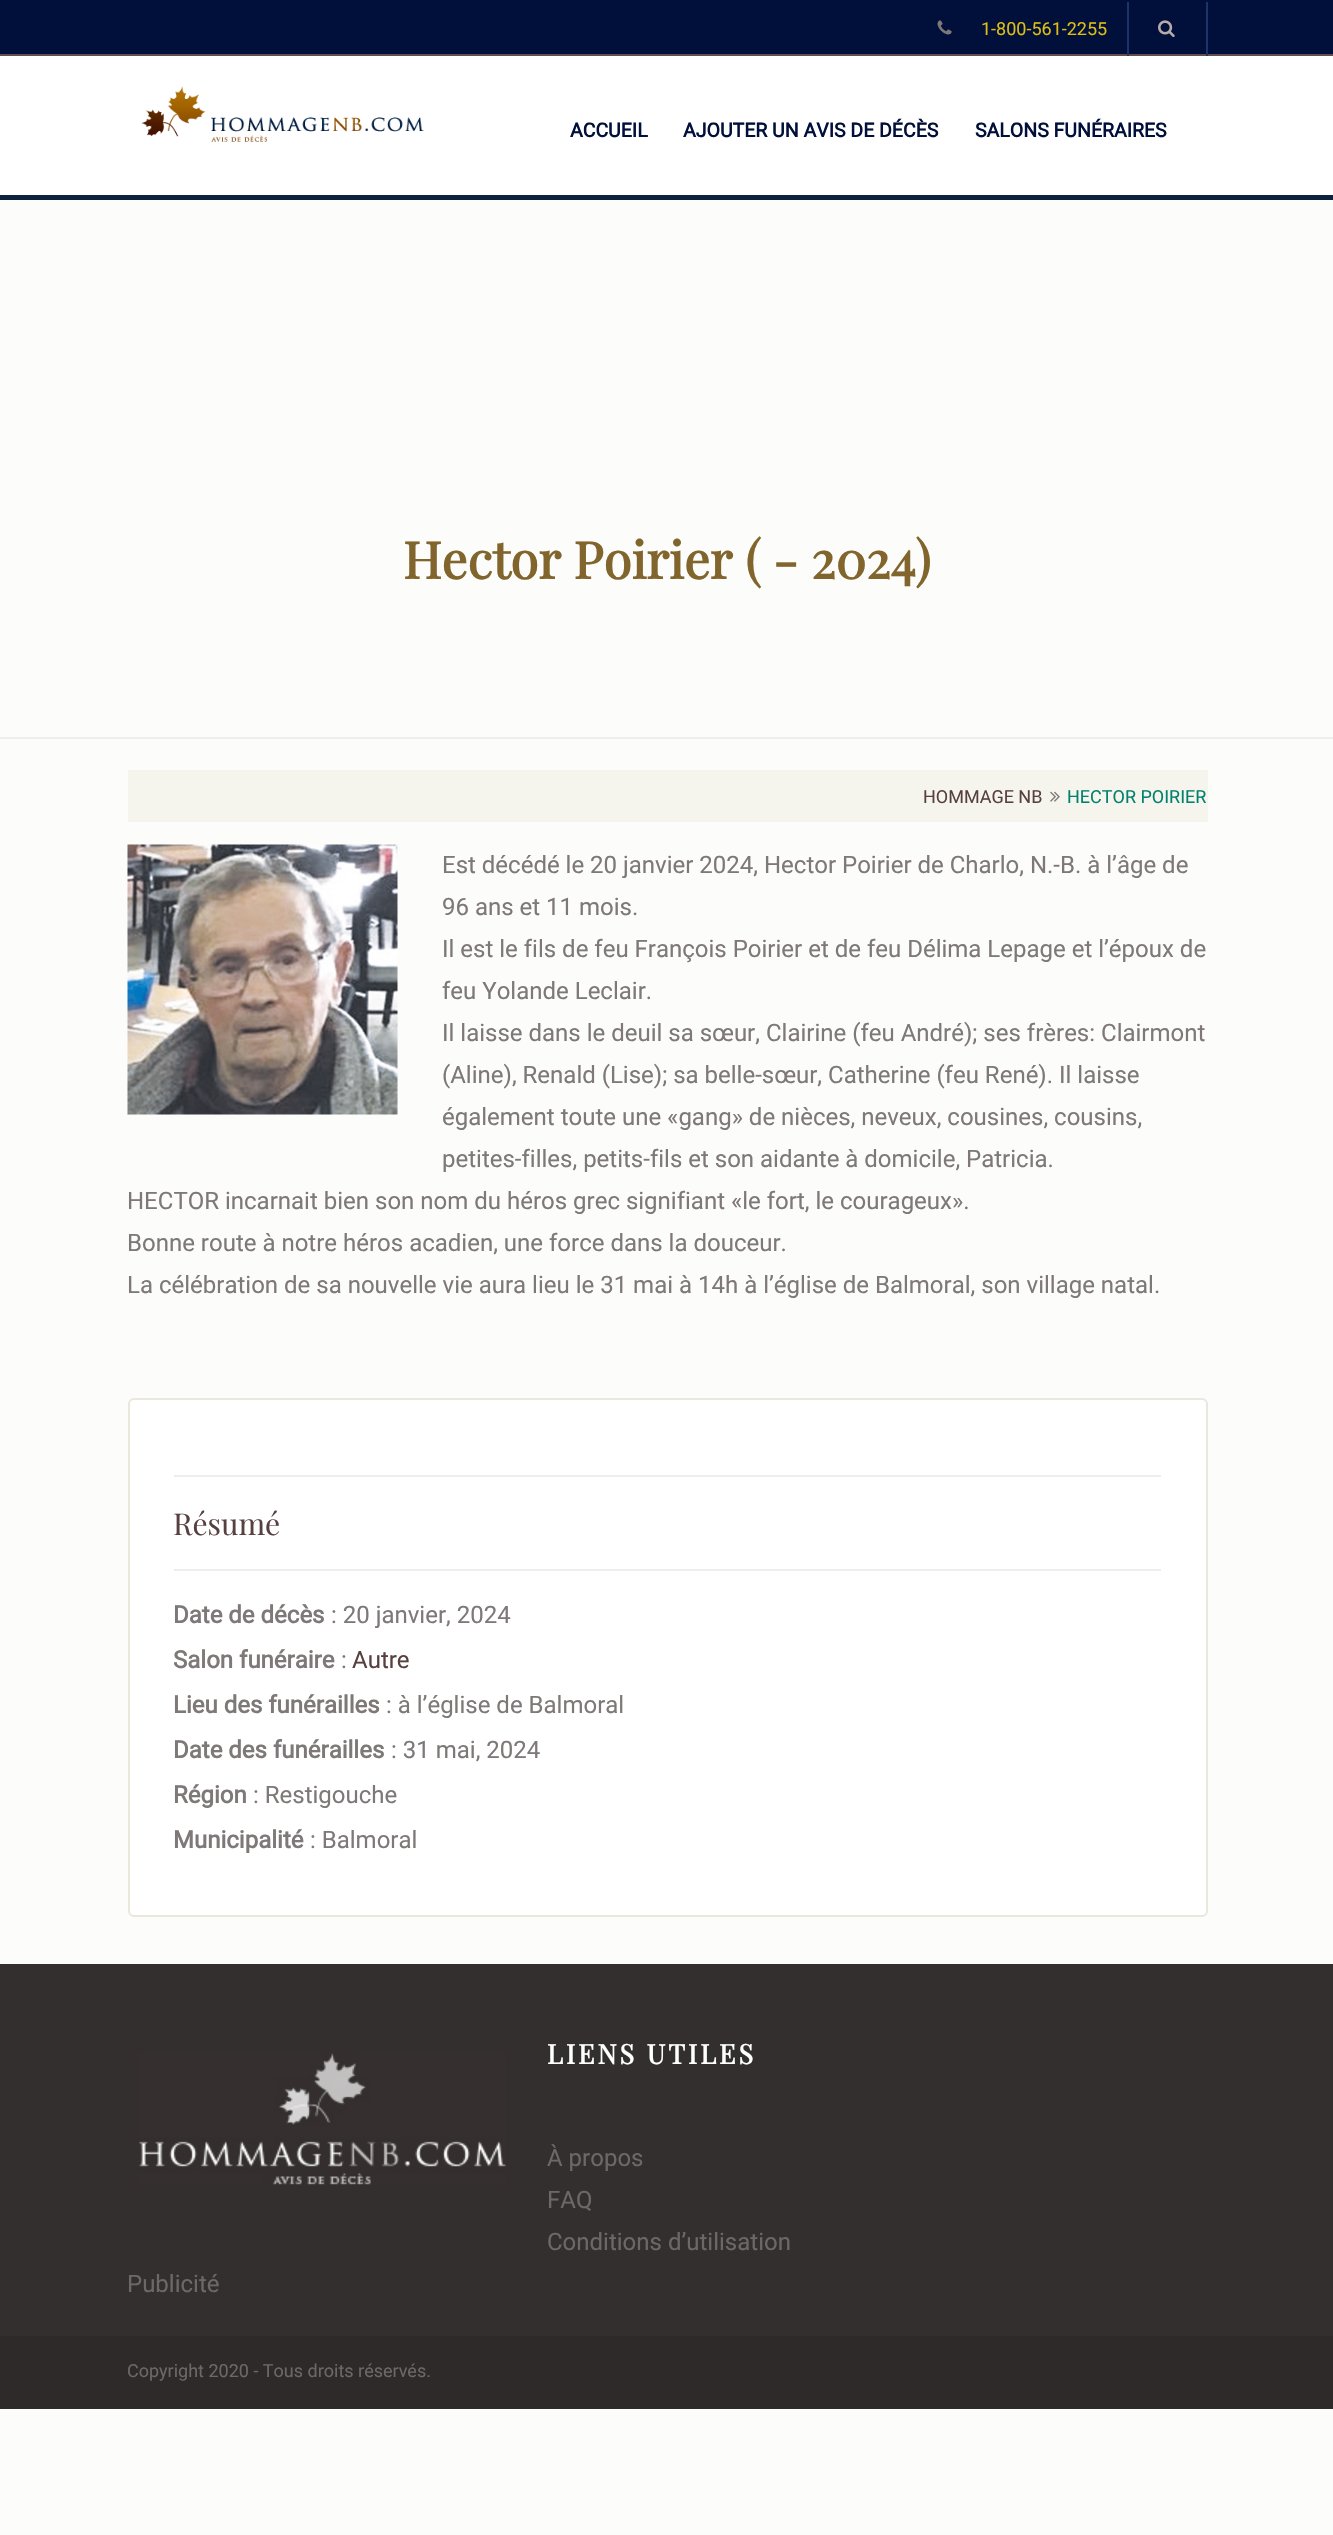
void draw(SkCanvas* canvas) {
  SkPaint paint;
  paint.setAntiAlias(true);
  auto face = [&](const char* family, int weight, float size, bool italic = false) {
    SkFontStyle style(weight, SkFontStyle::kNormal_Width,
      italic ? SkFontStyle::kItalic_Slant : SkFontStyle::kUpright_Slant);
    SkFont result(fontMgr->matchFamilyStyle(family, style), size);
    result.setSubpixel(true);
    return result;
  };
  auto writeSpaced = [&](const char* s, float x, float y, const SkFont& font, const SkPaint& ink, float letter, float word) {
    std::vector<SkGlyphID> glyphs(font.countText(s, strlen(s), SkTextEncoding::kUTF8));
    std::vector<float> xs(glyphs.size());
    font.textToGlyphs(s, strlen(s), SkTextEncoding::kUTF8, glyphs);
    font.getXPos(glyphs, xs, x);
    float extra = 0;
    for (size_t i = 0; i < glyphs.size(); i++) {
      xs[i] += extra;
      extra += letter + word * (glyphs[i] == font.unicharToGlyph(' '));
    }
    canvas->drawTextBlob(SkTextBlob::MakeFromPosHGlyphs(glyphs, xs, y, font), 0, 0, ink);
  };
  auto paste = [&](const char* path, float x, float y, float w, float h) {
    auto image = SkImages::DeferredFromEncodedData(SkData::MakeFromFileName(path));
    canvas->drawImageRect(image, SkRect::MakeXYWH(x, y, w, h), SkSamplingOptions());
  };
  canvas->clear(0xfffcfcfa);
  paint.setColor(0xff01103b);
  canvas->drawRect(SkRect::MakeXYWH(0, 0, 1333, 54), paint);
  paint.setColor(0xff644c4c);
  canvas->drawRect(SkRect::MakeXYWH(0, 54, 1333, 2), paint);
  paste("img/1.png", 937, 20, 15, 15);
  paint.setColor(0xff1e336c);
  canvas->drawRect(SkRect::MakeXYWH(1206, 2, 2, 60), paint);
  canvas->drawRect(SkRect::MakeXYWH(1127, 2, 2, 60), paint);
  paste("img/2.png", 1158, 20, 17, 18);
  paint.setColor(0xffffffff);
  canvas->drawRect(SkRect::MakeXYWH(0, 56, 1333, 139), paint);
  paint.setColor(0xff0d223f);
  canvas->drawRect(SkRect::MakeXYWH(0, 195, 1333, 5), paint);
  paste("img/3.png", 141, 86, 283, 56);
  paint.setColor(0xffeeeeee);
  canvas->drawRect(SkRect::MakeXYWH(0, 737, 1333, 2), paint);
  paint.setColor(0xfff6f5ed);
  canvas->drawRect(SkRect::MakeXYWH(128, 770, 1080, 52), paint);
  paste("img/4.png", 1050, 791, 10, 11);
  paste("img/5.png", 127, 844, 271, 271);
  paint.setColor(0xffffffff);
  canvas->drawRoundRect(SkRect::MakeXYWH(129, 1399, 1078, 517), 5, 5, paint);
  paint.setStroke(true);
  paint.setStrokeWidth(2);
  paint.setColor(0xffeae8dc);
  canvas->drawRoundRect(SkRect::MakeXYWH(129, 1399, 1078, 517), 5, 5, paint);
  paint.setStroke(false);
  {
    const struct { float x, y, w, h; SkColor color; } items[] = {
      {174, 1475, 987, 2, 0xffeeeeee},
      {174, 1569, 987, 2, 0xffeeeeee},
      {0, 1964, 1333, 372, 0xff342f2f},
    };
    for (auto [x, y, w, h, color] : items) {
      paint.setColor(color);
      canvas->drawRect(SkRect::MakeXYWH(x, y, w, h), paint);
    }
  }
  paste("img/6.png", 139, 2053, 367, 132);
  paint.setColor(0xff2e2a2a);
  canvas->drawRect(SkRect::MakeXYWH(0, 2336, 1333, 73), paint);
  auto f0 = face("Roboto", 400, 18);
  paint.setColor(0xffdebe13);
  canvas->drawString("1-800-561-2255", 981, 35, f0, paint);
  auto f1 = face("Roboto", 700, 19.5f);
  paint.setColor(0xff01103b);
  {
    const struct { const char* s; float x, y; } items[] = {
      {"ACCUEIL", 570, 137},
      {"AJOUTER UN AVIS DE DÉCÈS", 683, 137},
      {"SALONS FUNÉRAIRES", 975, 137},
    };
    for (auto [s, x, y] : items) {
      canvas->drawString(s, x, y, f1, paint);
    }
  }
  auto f2 = face("Playfair Display", 700, 51);
  paint.setColor(0xff82652d);
  canvas->drawString("Hector Poirier ( - 2024)", 403, 579, f2, paint);
  paint.setColor(0xff574040);
  canvas->drawString("HOMMAGE NB", 923, 803, f0, paint);
  paint.setColor(0xff02816f);
  canvas->drawString("HECTOR POIRIER", 1067, 803, f0, paint);
  auto f3 = face("Roboto", 400, 24);
  paint.setColor(0xff7e7878);
  {
    const struct { const char* s; float x, y; } items[] = {
      {"Est décédé le 20 janvier 2024, Hector Poirier de Charlo, N.-B. à l’âge de", 442, 873},
      {"96 ans et 11 mois.", 442, 915},
      {"Il est le fils de feu François Poirier et de feu Délima Lepage et l’époux de", 442, 957},
      {"feu Yolande Leclair.", 442, 999},
      {"Il laisse dans le deuil sa sœur, Clairine (feu André); ses frères: Clairmont", 442, 1041},
      {"(Aline), Renald (Lise); sa belle-sœur, Catherine (feu René). Il laisse", 442, 1083},
      {"également toute une «gang» de nièces, neveux, cousines, cousins,", 442, 1125},
      {"petites-filles, petits-fils et son aidante à domicile, Patricia.", 442, 1167},
      {"HECTOR incarnait bien son nom du héros grec signifiant «le fort, le courageux».", 127, 1209},
      {"Bonne route à notre héros acadien, une force dans la douceur.", 127, 1251},
      {"La célébration de sa nouvelle vie aura lieu le 31 mai à 14h à l’église de Balmoral, son village natal.", 127, 1293},
    };
    for (auto [s, x, y] : items) {
      canvas->drawString(s, x, y, f3, paint);
    }
  }
  auto f4 = face("Playfair Display", 400, 30);
  paint.setColor(0xff574040);
  canvas->drawString("Résumé", 173, 1535, f4, paint);
  auto f5 = face("Roboto", 700, 24);
  paint.setColor(0xff7e7878);
  canvas->drawString("Date de décès", 173, 1623, f5, paint);
  canvas->drawString(": 20 janvier, 2024", 331, 1623, f3, paint);
  canvas->drawString("Salon funéraire", 173, 1668, f5, paint);
  canvas->drawString(":", 341, 1668, f3, paint);
  paint.setColor(0xff574040);
  canvas->drawString("Autre", 352, 1668, f3, paint);
  paint.setColor(0xff7e7878);
  canvas->drawString("Lieu des funérailles", 173, 1713, f5, paint);
  canvas->drawString(": à l’église de Balmoral", 386, 1713, f3, paint);
  canvas->drawString("Date des funérailles", 173, 1758, f5, paint);
  canvas->drawString(": 31 mai, 2024", 391, 1758, f3, paint);
  canvas->drawString("Région", 173, 1803, f5, paint);
  canvas->drawString(": Restigouche", 253, 1803, f3, paint);
  canvas->drawString("Municipalité", 173, 1848, f5, paint);
  canvas->drawString(": Balmoral", 310, 1848, f3, paint);
  auto f6 = face("Playfair Display", 700, 27);
  paint.setColor(0xffffffff);
  writeSpaced("LIENS UTILES", 547, 2064, f6, paint, 3, 0);
  paint.setColor(0xff6d6868);
  {
    const struct { const char* s; float x, y; } items[] = {
      {"À propos", 547, 2166},
      {"FAQ", 547, 2208},
      {"Conditions d’utilisation", 547, 2250},
      {"Publicité", 127, 2292},
    };
    for (auto [s, x, y] : items) {
      canvas->drawString(s, x, y, f3, paint);
    }
  }
  canvas->drawString("Copyright 2020 - Tous droits réservés.", 127, 2377, f0, paint);
}
